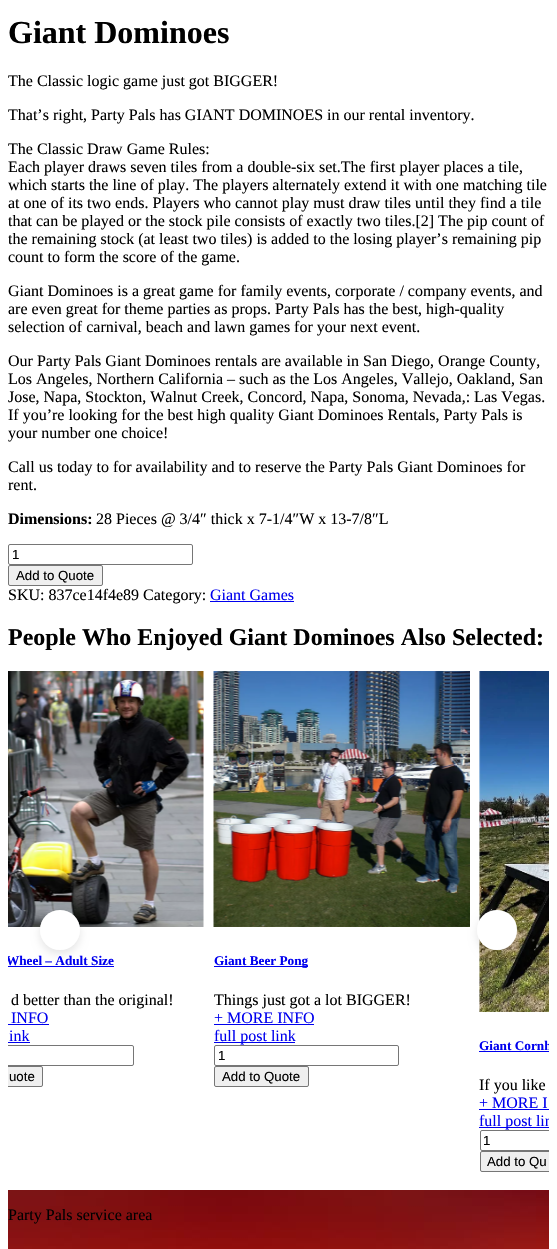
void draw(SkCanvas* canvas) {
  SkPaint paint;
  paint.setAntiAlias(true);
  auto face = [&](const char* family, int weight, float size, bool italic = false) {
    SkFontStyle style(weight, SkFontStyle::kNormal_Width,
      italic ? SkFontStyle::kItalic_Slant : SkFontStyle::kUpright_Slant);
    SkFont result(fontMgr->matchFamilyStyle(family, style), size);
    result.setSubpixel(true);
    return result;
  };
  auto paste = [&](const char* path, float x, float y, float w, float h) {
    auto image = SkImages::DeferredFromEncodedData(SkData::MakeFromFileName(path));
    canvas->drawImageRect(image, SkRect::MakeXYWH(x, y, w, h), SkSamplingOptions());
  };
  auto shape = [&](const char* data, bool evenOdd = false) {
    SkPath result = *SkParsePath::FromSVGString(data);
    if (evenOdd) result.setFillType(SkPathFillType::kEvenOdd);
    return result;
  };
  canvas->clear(0xffffffff);
  paint.setStroke(true);
  paint.setStrokeWidth(1);
  paint.setColor(0xff767676);
  canvas->drawRoundRect(SkRect::MakeXYWH(8.5f, 544.5f, 184, 20), 1.5f, 1.5f, paint);
  paint.setStroke(false);
  paint.setColor(0xffefefef);
  canvas->drawRoundRect(SkRect::MakeXYWH(8.5f, 565.5f, 94, 20), 1.5f, 1.5f, paint);
  paint.setStroke(true);
  paint.setColor(0xff767676);
  canvas->drawRoundRect(SkRect::MakeXYWH(8.5f, 565.5f, 94, 20), 1.5f, 1.5f, paint);
  paint.setStroke(false);
  paint.setColor(0xff0000ee);
  canvas->drawRect(SkRect::MakeXYWH(210, 601, 84, 1), paint);
  paste("img/1.png", 8, 671, 196, 256);
  canvas->drawRect(SkRect::MakeXYWH(8, 966, 106, 1), paint);
  paint.setColor(0x1a000000);
  paint.setMaskFilter(SkMaskFilter::MakeBlur(kNormal_SkBlurStyle, 4));
  canvas->drawRoundRect(SkRect::MakeXYWH(40, 914, 40, 40), 20, 20, paint);
  paint.setMaskFilter(nullptr);
  paint.setColor(0xffffffff);
  canvas->drawCircle(60, 930, 20, paint);
  paint.setStroke(true);
  paint.setStrokeWidth(2);
  paint.setColor(0x80ffffff);
  canvas->drawCircle(60, 930, 19, paint);
  paste("img/2.png", 213, 671, 257, 256);
  paste("img/3.png", 479, 671, 70, 341);
  paint.setStroke(false);
  paint.setColor(0x1a000000);
  paint.setMaskFilter(SkMaskFilter::MakeBlur(kNormal_SkBlurStyle, 4));
  canvas->drawRoundRect(SkRect::MakeXYWH(477, 914, 40, 40), 20, 20, paint);
  paint.setMaskFilter(nullptr);
  paint.setColor(0xffffffff);
  canvas->drawCircle(497, 930, 20, paint);
  paint.setStroke(true);
  paint.setColor(0x80ffffff);
  canvas->drawCircle(497, 930, 19, paint);
  paint.setStroke(false);
  paint.setColor(0xff0000ee);
  canvas->drawRect(SkRect::MakeXYWH(8, 1024, 41, 1), paint);
  canvas->drawRect(SkRect::MakeXYWH(8, 1042, 22, 1), paint);
  canvas->save();
  canvas->clipRect(SkRect::MakeXYWH(8, 671, 541, 519));
  paint.setStroke(true);
  paint.setStrokeWidth(1);
  paint.setColor(0xff767676);
  canvas->drawRoundRect(SkRect::MakeXYWH(-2.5f, 1045.5f, 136, 20), 1.5f, 1.5f, paint);
  canvas->restore();
  paint.setStroke(false);
  paint.setColor(0xffefefef);
  canvas->drawPath(shape("M8 1066H41C42 1066 43 1067 43 1068V1085C43 1086 42 1087 41 1087H8Z"), paint);
  canvas->save();
  canvas->clipRect(SkRect::MakeXYWH(8, 671, 541, 519));
  paint.setStroke(true);
  paint.setColor(0xff767676);
  canvas->drawRoundRect(SkRect::MakeXYWH(-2.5f, 1066.5f, 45, 20), 1.5f, 1.5f, paint);
  canvas->restore();
  paint.setStroke(false);
  {
    const struct { float x, y, w, h; SkColor color; } items[] = {
      {214, 966, 94, 1, 0xff0000ee},
      {214, 1024, 100, 1, 0xff0000ee},
      {214, 1042, 81, 1, 0xff0000ee},
    };
    for (auto [x, y, w, h, color] : items) {
      paint.setColor(color);
      canvas->drawRect(SkRect::MakeXYWH(x, y, w, h), paint);
    }
  }
  paint.setStroke(true);
  paint.setColor(0xff767676);
  canvas->drawRoundRect(SkRect::MakeXYWH(214.5f, 1045.5f, 184, 20), 1.5f, 1.5f, paint);
  paint.setStroke(false);
  paint.setColor(0xffefefef);
  canvas->drawRoundRect(SkRect::MakeXYWH(214.5f, 1066.5f, 94, 20), 1.5f, 1.5f, paint);
  paint.setStroke(true);
  paint.setColor(0xff767676);
  canvas->drawRoundRect(SkRect::MakeXYWH(214.5f, 1066.5f, 94, 20), 1.5f, 1.5f, paint);
  paint.setStroke(false);
  {
    const struct { float x, y, w, h; SkColor color; } items[] = {
      {479, 1051, 70, 1, 0xff0000ee},
      {479, 1109, 70, 1, 0xff0000ee},
      {479, 1127, 70, 1, 0xff0000ee},
    };
    for (auto [x, y, w, h, color] : items) {
      paint.setColor(color);
      canvas->drawRect(SkRect::MakeXYWH(x, y, w, h), paint);
    }
  }
  canvas->save();
  canvas->clipRect(SkRect::MakeXYWH(8, 671, 541, 519));
  paint.setStroke(true);
  paint.setColor(0xff767676);
  canvas->drawRoundRect(SkRect::MakeXYWH(480.5f, 1130.5f, 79, 20), 1.5f, 1.5f, paint);
  canvas->restore();
  paint.setStroke(false);
  paint.setColor(0xffefefef);
  canvas->drawPath(shape("M482 1151H549V1172H482C481 1172 480 1171 480 1170V1153C480 1152 481 1151 482 1151Z"), paint);
  canvas->save();
  canvas->clipRect(SkRect::MakeXYWH(8, 671, 541, 519));
  paint.setStroke(true);
  paint.setColor(0xff767676);
  canvas->drawRoundRect(SkRect::MakeXYWH(480.5f, 1151.5f, 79, 20), 1.5f, 1.5f, paint);
  canvas->restore();
  paste("img/4.png", 8, 1190, 541, 59);
  auto f0 = face("Liberation Serif", 700, 32);
  paint.setStroke(false);
  paint.setColor(0xff000000);
  canvas->drawString("Giant Dominoes", 8, 43, f0, paint);
  auto f1 = face("Liberation Serif", 400, 16);
  {
    const struct { const char* s; float x, y; } items[] = {
      {"The Classic logic game just got BIGGER!", 8, 86},
      {"That’s right, Party Pals has GIANT DOMINOES in our rental inventory.", 8, 120},
      {"The Classic Draw Game Rules:", 8, 154},
      {"Each player draws seven tiles from a double-six set.The first player places a tile,", 8, 172},
      {"which starts the line of play. The players alternately extend it with one matching tile", 8, 190},
      {"at one of its two ends. Players who cannot play must draw tiles until they find a tile", 8, 208},
      {"that can be played or the stock pile consists of exactly two tiles.[2] The pip count of", 8, 226},
      {"the remaining stock (at least two tiles) is added to the losing player’s remaining pip", 8, 244},
      {"count to form the score of the game.", 8, 262},
      {"Giant Dominoes is a great game for family events, corporate / company events, and", 8, 296},
      {"are even great for theme parties as props. Party Pals has the best, high-quality", 8, 314},
      {"selection of carnival, beach and lawn games for your next event.", 8, 332},
      {"Our Party Pals Giant Dominoes rentals are available in San Diego, Orange County,", 8, 366},
      {"Los Angeles, Northern California – such as the Los Angeles, Vallejo, Oakland, San", 8, 384},
      {"Jose, Napa, Stockton, Walnut Creek, Concord, Napa, Sonoma, Nevada,: Las Vegas.", 8, 402},
      {"If you’re looking for the best high quality Giant Dominoes Rentals, Party Pals is", 8, 420},
      {"your number one choice!", 8, 438},
      {"Call us today to for availability and to reserve the Party Pals Giant Dominoes for", 8, 472},
      {"rent.", 8, 490},
    };
    for (auto [s, x, y] : items) {
      canvas->drawString(s, x, y, f1, paint);
    }
  }
  auto f2 = face("Liberation Serif", 700, 16);
  canvas->drawString("Dimensions:", 8, 524, f2, paint);
  canvas->drawString("28 Pieces @ 3/4″ thick x 7-1/4″W x 13-7/8″L", 96, 524, f1, paint);
  auto f3 = face("Liberation Sans", 400, 13.25f);
  canvas->drawString("1", 12, 559, f3, paint);
  canvas->drawString("Add to Quote", 16, 580, f3, paint);
  canvas->drawString("SKU: 837ce14f4e89 Category:", 8, 600, f1, paint);
  paint.setColor(0xff0000ee);
  canvas->drawString("Giant Games", 210, 600, f1, paint);
  auto f4 = face("Liberation Serif", 700, 24);
  paint.setColor(0xff000000);
  canvas->drawString("People Who Enjoyed Giant Dominoes Also Selected:", 8, 645, f4, paint);
  canvas->save();
  canvas->clipRect(SkRect::MakeXYWH(8, 671, 541, 519));
  auto f5 = face("Liberation Serif", 700, 13.25f);
  paint.setColor(0xff0000ee);
  canvas->drawString("Wheel – Adult Size", 6, 965, f5, paint);
  canvas->restore();
  paint.setColor(0xff000000);
  canvas->drawString("d better than the original!", 11, 1005, f1, paint);
  paint.setColor(0xff0000ee);
  canvas->drawString("INFO", 11, 1023, f1, paint);
  canvas->drawString("ink", 9, 1041, f1, paint);
  paint.setColor(0xff000000);
  canvas->drawString("uote", 9, 1081, f3, paint);
  paint.setColor(0xff0000ee);
  canvas->drawString("Giant Beer Pong", 214, 965, f5, paint);
  paint.setColor(0xff000000);
  canvas->drawString("Things just got a lot BIGGER!", 214, 1005, f1, paint);
  paint.setColor(0xff0000ee);
  canvas->drawString("+ MORE INFO", 214, 1023, f1, paint);
  canvas->drawString("full post link", 214, 1041, f1, paint);
  paint.setColor(0xff000000);
  canvas->drawString("1", 218, 1060, f3, paint);
  canvas->drawString("Add to Quote", 222, 1081, f3, paint);
  canvas->save();
  canvas->clipRect(SkRect::MakeXYWH(8, 671, 541, 519));
  paint.setColor(0xff0000ee);
  canvas->drawString("Giant Cornh", 479, 1050, f5, paint);
  canvas->restore();
  paint.setColor(0xff000000);
  canvas->drawString("If you like", 479, 1090, f1, paint);
  paint.setColor(0xff0000ee);
  canvas->drawString("+ MORE I", 479, 1108, f1, paint);
  canvas->save();
  canvas->clipRect(SkRect::MakeXYWH(8, 671, 541, 519));
  canvas->drawString("full post lin", 479, 1126, f1, paint);
  canvas->restore();
  paint.setColor(0xff000000);
  canvas->drawString("1", 483, 1145, f3, paint);
  canvas->drawString("Add to Qu", 487, 1166, f3, paint);
  canvas->drawString("Party Pals service area", 8, 1220, f1, paint);
}
